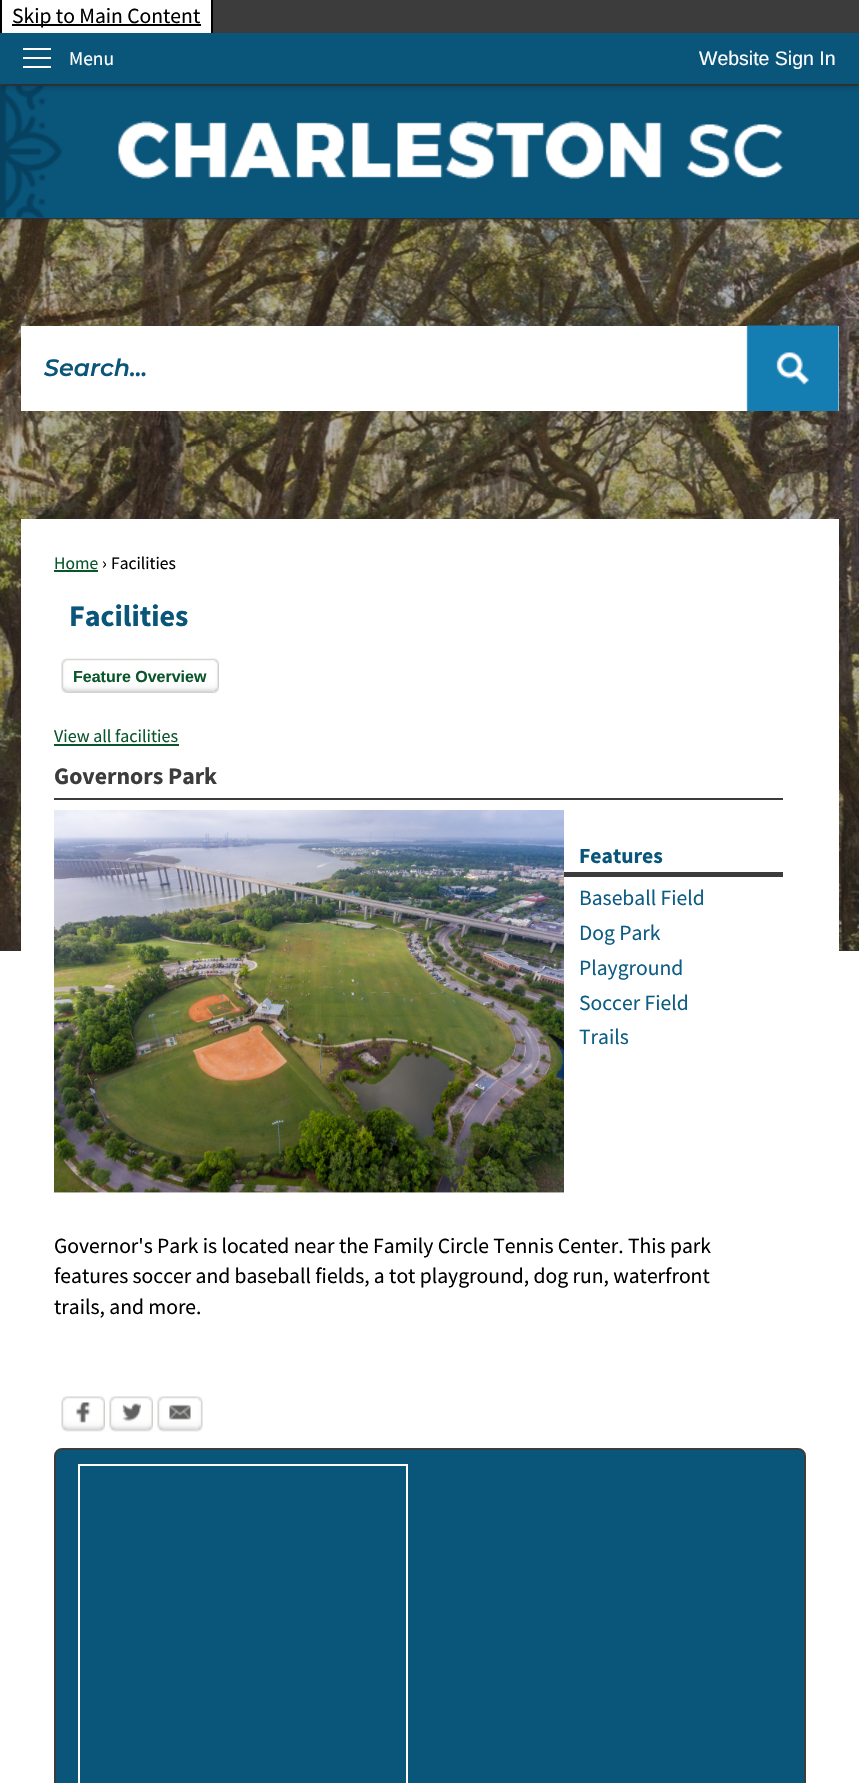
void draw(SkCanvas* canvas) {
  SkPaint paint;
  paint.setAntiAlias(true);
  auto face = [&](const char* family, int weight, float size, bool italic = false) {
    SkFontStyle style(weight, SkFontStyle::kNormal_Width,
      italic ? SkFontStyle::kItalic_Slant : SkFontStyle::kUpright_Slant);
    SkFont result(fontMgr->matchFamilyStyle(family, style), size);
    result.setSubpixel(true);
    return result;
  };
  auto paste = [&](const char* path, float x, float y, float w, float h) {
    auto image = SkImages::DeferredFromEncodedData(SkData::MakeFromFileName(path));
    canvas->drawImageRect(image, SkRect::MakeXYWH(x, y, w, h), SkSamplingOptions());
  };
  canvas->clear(0xff3c3c3c);
  paint.setColor(0xffffffff);
  canvas->drawRect(SkRect::MakeXYWH(2, 0, 209, 33), paint);
  paint.setStroke(true);
  paint.setStrokeWidth(2);
  paint.setColor(0xff000000);
  canvas->drawRect(SkRect::MakeXYWH(1, -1, 211, 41), paint);
  paint.setStroke(false);
  canvas->drawRect(SkRect::MakeXYWH(12, 24, 189, 2), paint);
  paint.setColor(0x33000000);
  paint.setMaskFilter(SkMaskFilter::MakeBlur(kNormal_SkBlurStyle, 4));
  canvas->drawRect(SkRect::MakeXYWH(0, 87, 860, 132), paint);
  paint.setMaskFilter(nullptr);
  paint.setColor(0xff0a557a);
  canvas->drawRect(SkRect::MakeXYWH(0, 86, 859, 132), paint);
  paste("img/1.png", 0, 85, 62, 133);
  paint.setColor(0x33000000);
  paint.setMaskFilter(SkMaskFilter::MakeBlur(kNormal_SkBlurStyle, 3));
  canvas->drawRect(SkRect::MakeXYWH(0, 36, 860, 51), paint);
  paint.setMaskFilter(nullptr);
  {
    const struct { float x, y, w, h; SkColor color; } items[] = {
      {0, 33, 859, 51, 0xff0a557a},
      {23, 48, 28, 2, 0xffffffff},
      {23, 57, 28, 2, 0xffffffff},
      {23, 66, 28, 2, 0xffffffff},
    };
    for (auto [x, y, w, h, color] : items) {
      paint.setColor(color);
      canvas->drawRect(SkRect::MakeXYWH(x, y, w, h), paint);
    }
  }
  paste("img/2.png", 118, 121, 666, 58);
  paste("img/3.png", 0, 218, 859, 733);
  canvas->drawRect(SkRect::MakeXYWH(21, 326, 818, 85), paint);
  paste("img/4.png", 746, 325, 93, 86);
  {
    const struct { float x, y, w, h; SkColor color; } items[] = {
      {0, 951, 859, 832, 0xffffffff},
      {21, 519, 818, 432, 0xffffffff},
      {54, 570, 44, 2, 0xff0a562a},
    };
    for (auto [x, y, w, h, color] : items) {
      paint.setColor(color);
      canvas->drawRect(SkRect::MakeXYWH(x, y, w, h), paint);
    }
  }
  paste("img/5.png", 212, 658, 7, 36);
  paste("img/6.png", 61, 658, 152, 35);
  canvas->drawRect(SkRect::MakeXYWH(54, 744, 125, 2), paint);
  paint.setColor(0xff3c3c3c);
  canvas->drawRect(SkRect::MakeXYWH(54, 798, 729, 2), paint);
  paste("img/7.png", 54, 810, 510, 383);
  canvas->drawRect(SkRect::MakeXYWH(564, 872, 219, 5), paint);
  paste("img/8.png", 99, 1396, 6, 36);
  paste("img/9.png", 61, 1396, 38, 36);
  paste("img/10.png", 76, 1402, 15, 21);
  paste("img/8.png", 147, 1396, 6, 36);
  paste("img/9.png", 109, 1396, 38, 36);
  paste("img/11.png", 122, 1403, 19, 19);
  paste("img/12.png", 196, 1396, 7, 36);
  paste("img/13.png", 157, 1396, 40, 36);
  paste("img/14.png", 169, 1404, 22, 16);
  paint.setColor(0xff0a557a);
  canvas->drawRoundRect(SkRect::MakeXYWH(55, 1449, 750, 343), 7, 7, paint);
  paint.setStroke(true);
  paint.setColor(0xff3c3c3c);
  canvas->drawRoundRect(SkRect::MakeXYWH(55, 1449, 750, 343), 7, 7, paint);
  paint.setColor(0xffffffff);
  canvas->drawRect(SkRect::MakeXYWH(79, 1465, 328, 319), paint);
  auto f0 = face("Source Sans Pro", 400, 21.6f);
  paint.setStroke(false);
  paint.setColor(0xff000000);
  canvas->drawString("Skip to Main Content", 12, 23, f0, paint);
  auto f1 = face("Source Sans Pro", 400, 19.5f);
  paint.setColor(0xffffffff);
  canvas->drawString("Menu", 69, 65, f1, paint);
  auto f2 = face("Liberation Sans", 400, 19.5f);
  canvas->drawString("Website Sign In", 699, 65, f2, paint);
  auto f3 = face("Montserrat", 600, 23.75f, true);
  paint.setColor(0xff0a557a);
  canvas->drawString("Search...", 44, 376, f3, paint);
  auto f4 = face("Source Sans Pro", 400, 17.5f);
  paint.setColor(0xff0a562a);
  canvas->drawString("Home", 54, 569, f4, paint);
  paint.setColor(0xff000000);
  canvas->drawString("›", 102, 569, f4, paint);
  canvas->drawString("Facilities", 111, 569, f4, paint);
  auto f5 = face("Source Sans Pro", 700, 30);
  paint.setColor(0xff0a557a);
  canvas->drawString("Facilities", 69, 626, f5, paint);
  auto f6 = face("Liberation Sans", 700, 16);
  paint.setColor(0xff0a562a);
  canvas->drawString("Feature Overview", 73, 682, f6, paint);
  auto f7 = face("Source Sans Pro", 400, 18);
  canvas->drawString("View all facilities", 54, 742, f7, paint);
  auto f8 = face("Source Sans Pro", 700, 23.75f);
  paint.setColor(0xff3c3c3c);
  canvas->drawString("Governors Park", 54, 784, f8, paint);
  auto f9 = face("Source Sans Pro", 700, 21.6f);
  paint.setColor(0xff0a557a);
  canvas->drawString("Features", 579, 863, f9, paint);
  paint.setColor(0xff0e5d85);
  {
    const struct { const char* s; float x, y; } items[] = {
      {"Baseball Field", 579, 905},
      {"Dog Park", 579, 940},
      {"Playground", 579, 975},
      {"Soccer Field", 579, 1010},
      {"Trails", 579, 1044},
    };
    for (auto [s, x, y] : items) {
      canvas->drawString(s, x, y, f0, paint);
    }
  }
  paint.setColor(0xff000000);
  {
    const struct { const char* s; float x, y; } items[] = {
      {"Governor's Park is located near the Family Circle Tennis Center. This park", 54, 1253},
      {"features soccer and baseball fields, a tot playground, dog run, waterfront", 54, 1283},
      {"trails, and more.", 54, 1314},
    };
    for (auto [s, x, y] : items) {
      canvas->drawString(s, x, y, f0, paint);
    }
  }
}
